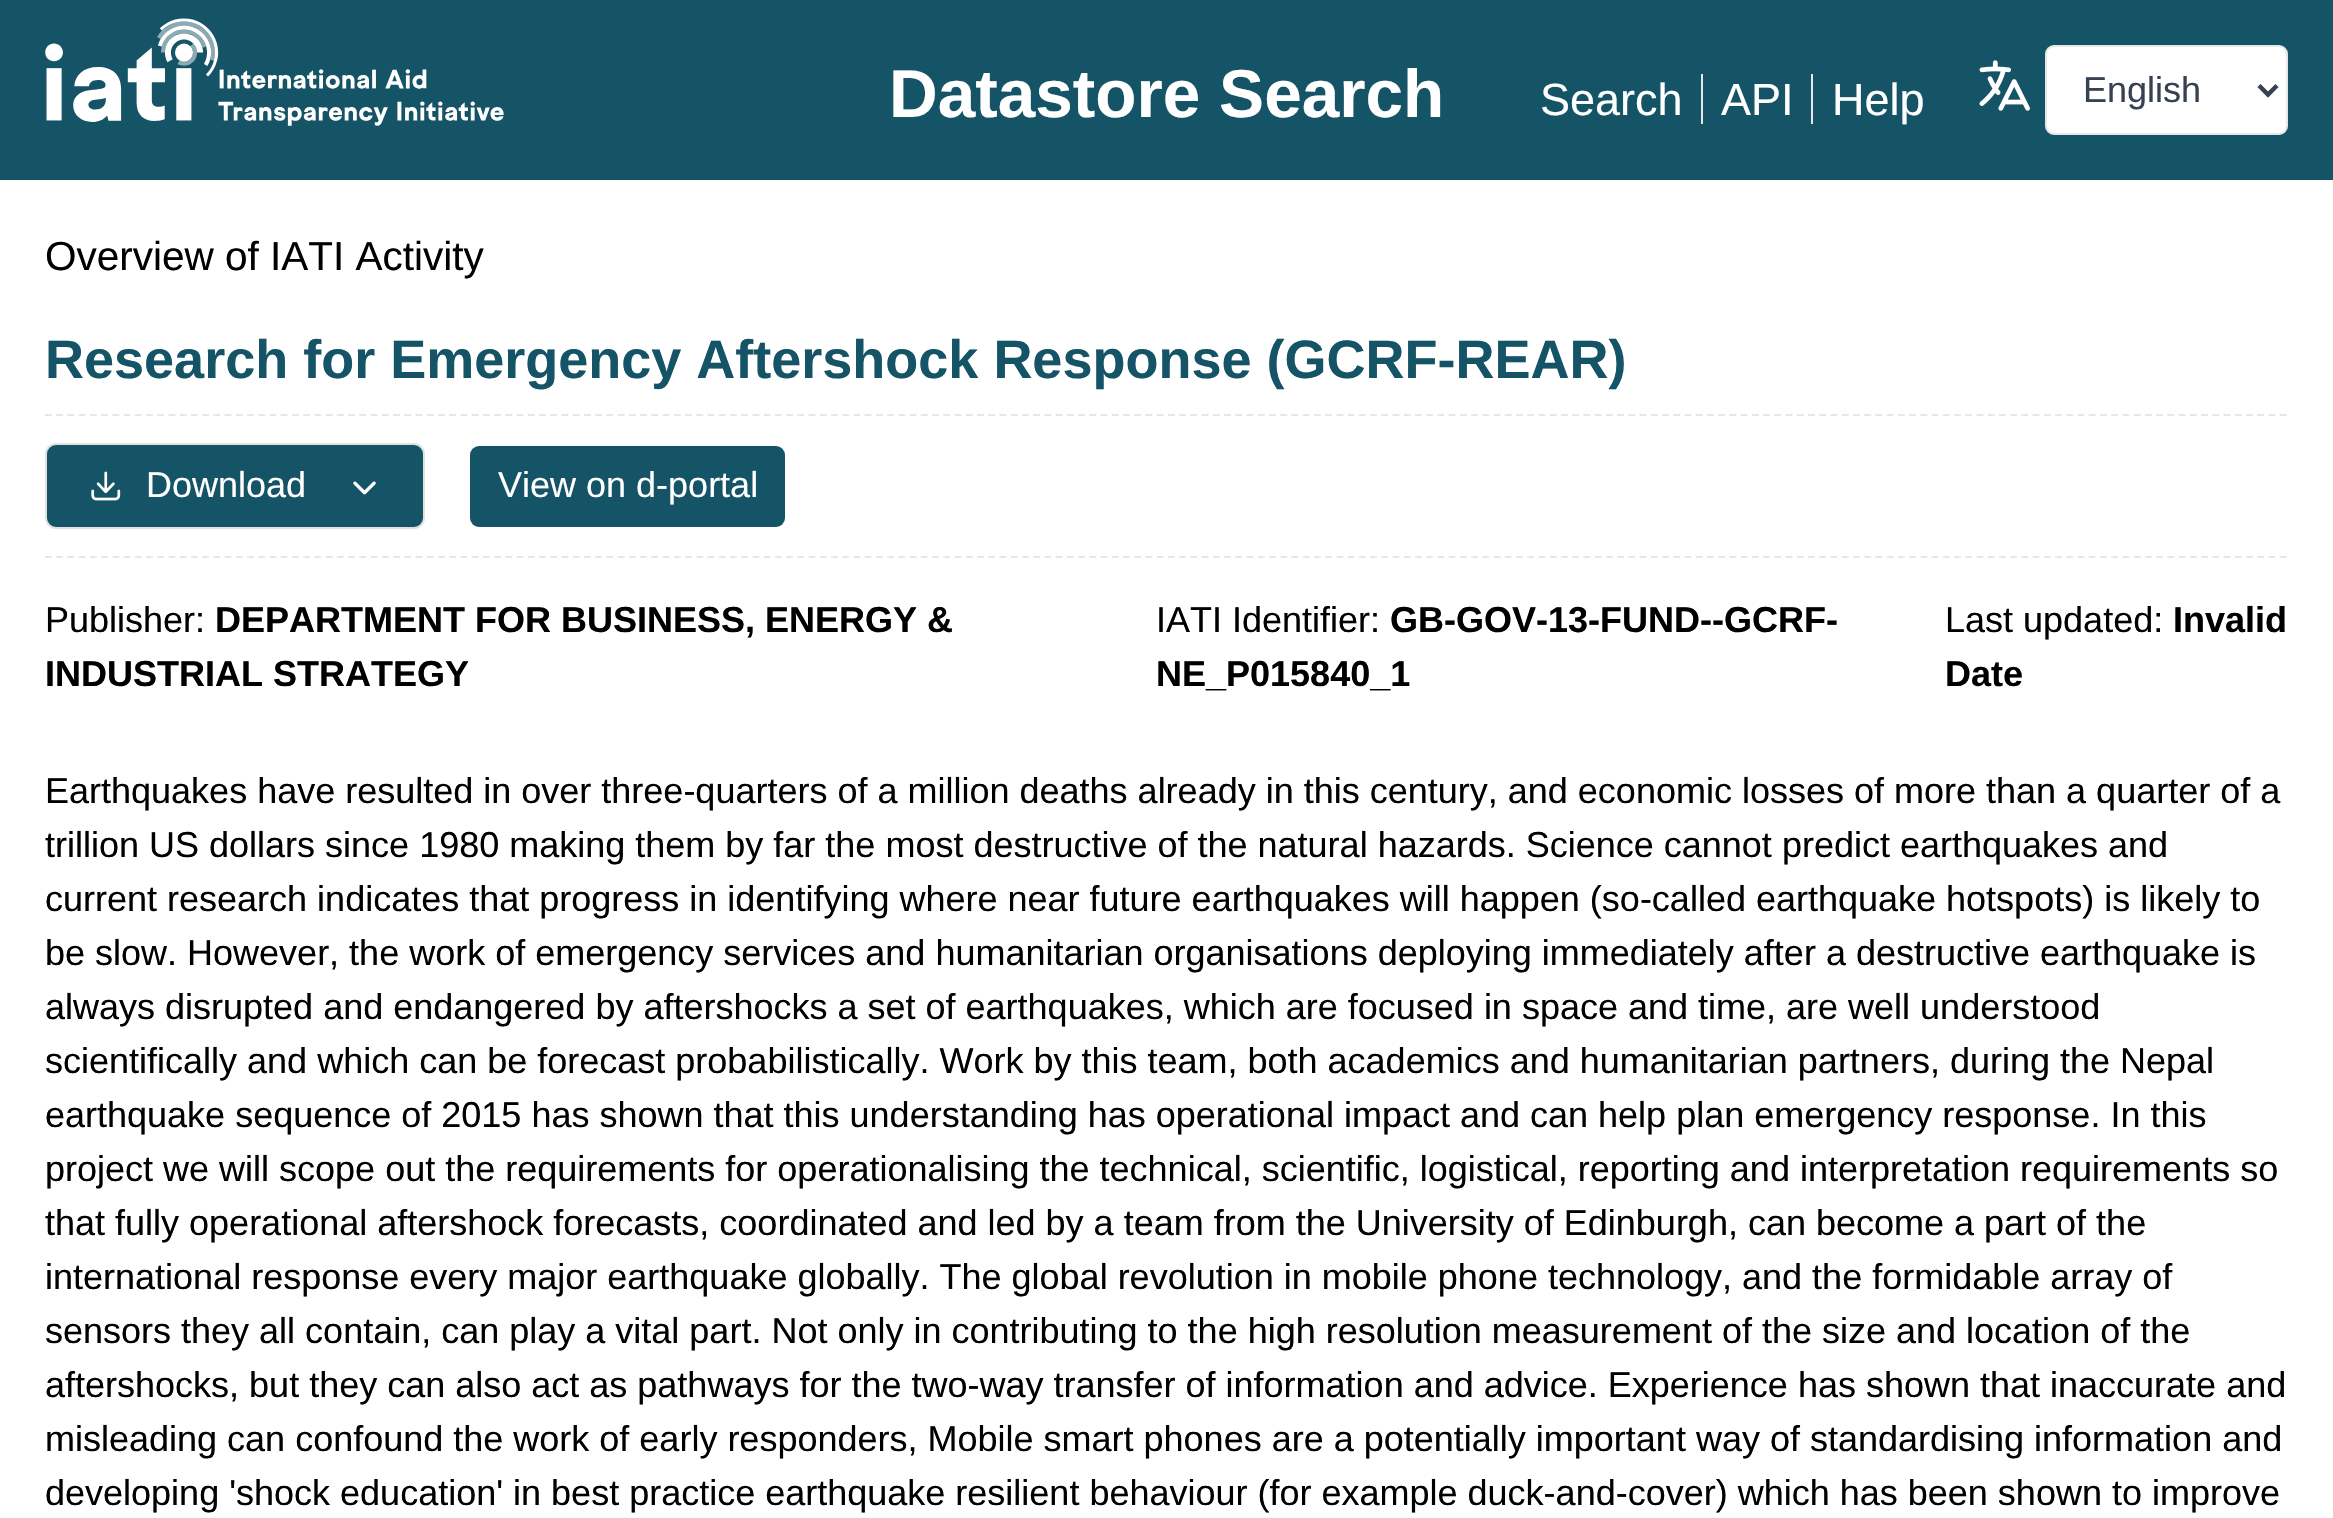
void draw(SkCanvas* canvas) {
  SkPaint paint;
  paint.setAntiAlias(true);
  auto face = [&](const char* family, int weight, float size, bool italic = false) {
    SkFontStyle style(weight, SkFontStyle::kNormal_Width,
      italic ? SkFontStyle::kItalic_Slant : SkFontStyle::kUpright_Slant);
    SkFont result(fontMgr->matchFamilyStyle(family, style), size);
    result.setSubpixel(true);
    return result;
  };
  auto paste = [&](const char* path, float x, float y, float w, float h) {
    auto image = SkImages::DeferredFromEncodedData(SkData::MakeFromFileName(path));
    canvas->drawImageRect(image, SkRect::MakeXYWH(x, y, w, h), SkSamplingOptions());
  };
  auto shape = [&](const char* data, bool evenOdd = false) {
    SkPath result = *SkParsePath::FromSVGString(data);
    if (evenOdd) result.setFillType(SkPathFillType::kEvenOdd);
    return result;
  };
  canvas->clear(0xffffffff);
  paint.setColor(0xff155366);
  canvas->drawRect(SkRect::MakeXYWH(0, 0, 2333, 180), paint);
  paste("img/1.png", 45, 18, 459, 108);
  paint.setColor(0xffe5e7eb);
  canvas->drawRect(SkRect::MakeXYWH(1701, 74, 2, 50), paint);
  canvas->drawRect(SkRect::MakeXYWH(1811, 74, 2, 50), paint);
  paste("img/2.png", 1979, 60, 51, 51);
  paint.setColor(0xffffffff);
  canvas->drawRoundRect(SkRect::MakeXYWH(2046, 46, 241, 88), 8, 8, paint);
  paint.setStroke(true);
  paint.setStrokeWidth(2);
  paint.setColor(0xffe5e7eb);
  canvas->drawRoundRect(SkRect::MakeXYWH(2046, 46, 241, 88), 8, 8, paint);
  paint.setStrokeWidth(4.5f);
  paint.setColor(0xff374151);
  canvas->drawPath(shape("M2259 85.5L2268 94.5L2277 85.5"), paint);
  paint.setStrokeWidth(2.2f);
  paint.setColor(0xffe5e7eb);
  paint.setPathEffect(SkDashPathEffect::Make({{6.75f, 4.48f}}, 0));
  canvas->drawPath(shape("M45 415H2288"), paint);
  paint.setPathEffect(nullptr);
  paint.setPathEffect(SkDashPathEffect::Make({{6.75f, 4.48f}}, 0));
  canvas->drawPath(shape("M45 557H2288"), paint);
  paint.setPathEffect(nullptr);
  paint.setStroke(false);
  paint.setColor(0xff155366);
  canvas->drawRoundRect(SkRect::MakeXYWH(46, 444, 378, 84), 10, 10, paint);
  paint.setStroke(true);
  paint.setStrokeWidth(2);
  paint.setColor(0xffe0e1e2);
  canvas->drawRoundRect(SkRect::MakeXYWH(46, 444, 378, 84), 10, 10, paint);
  paste("img/3.png", 91, 471, 30, 30);
  paste("img/4.png", 353, 481, 23, 14);
  paint.setStroke(false);
  paint.setColor(0xff155366);
  canvas->drawRoundRect(SkRect::MakeXYWH(470, 446, 315, 81), 9, 9, paint);
  auto f0 = face("Liberation Sans", 700, 67.5f);
  paint.setColor(0xffffffff);
  canvas->drawString("Datastore Search", 889, 117, f0, paint);
  auto f1 = face("Liberation Sans", 400, 45);
  {
    const struct { const char* s; float x, y; } items[] = {
      {"Search", 1540, 115},
      {"API", 1721, 115},
      {"Help", 1832, 115},
    };
    for (auto [s, x, y] : items) {
      canvas->drawString(s, x, y, f1, paint);
    }
  }
  auto f2 = face("Liberation Sans", 400, 36);
  paint.setColor(0xff374151);
  canvas->drawString("English", 2083, 102, f2, paint);
  auto f3 = face("Liberation Sans", 400, 40.5f);
  paint.setColor(0xff000000);
  canvas->drawString("Overview of IATI Activity", 45, 270, f3, paint);
  auto f4 = face("Liberation Sans", 700, 54);
  paint.setColor(0xff155366);
  canvas->drawString("Research for Emergency Aftershock Response (GCRF-REAR)", 45, 378, f4, paint);
  paint.setColor(0xffffffff);
  canvas->drawString("Download", 146, 497, f2, paint);
  canvas->drawString("View on d-portal", 498, 497, f2, paint);
  paint.setColor(0xff000000);
  canvas->drawString("Publisher:", 45, 632, f2, paint);
  auto f5 = face("Liberation Sans", 700, 36);
  canvas->drawString("DEPARTMENT FOR BUSINESS, ENERGY &", 215, 632, f5, paint);
  canvas->drawString("INDUSTRIAL STRATEGY", 45, 686, f5, paint);
  canvas->drawString("IATI Identifier:", 1156, 632, f2, paint);
  canvas->drawString("GB-GOV-13-FUND--GCRF-", 1390, 632, f5, paint);
  canvas->drawString("NE_P015840_1", 1156, 686, f5, paint);
  canvas->drawString("Last updated:", 1945, 632, f2, paint);
  canvas->drawString("Invalid", 2173, 632, f5, paint);
  canvas->drawString("Date", 1945, 686, f5, paint);
  {
    const struct { const char* s; float x, y; } items[] = {
      {"Earthquakes have resulted in over three-quarters of a million deaths already in this century, and economic losses of more than a quarter of a", 45, 803},
      {"trillion US dollars since 1980 making them by far the most destructive of the natural hazards. Science cannot predict earthquakes and", 45, 857},
      {"current research indicates that progress in identifying where near future earthquakes will happen (so-called earthquake hotspots) is likely to", 45, 911},
      {"be slow. However, the work of emergency services and humanitarian organisations deploying immediately after a destructive earthquake is", 45, 965},
      {"always disrupted and endangered by aftershocks a set of earthquakes, which are focused in space and time, are well understood", 45, 1019},
      {"scientifically and which can be forecast probabilistically. Work by this team, both academics and humanitarian partners, during the Nepal", 45, 1073},
      {"earthquake sequence of 2015 has shown that this understanding has operational impact and can help plan emergency response. In this", 45, 1127},
      {"project we will scope out the requirements for operationalising the technical, scientific, logistical, reporting and interpretation requirements so", 45, 1181},
      {"that fully operational aftershock forecasts, coordinated and led by a team from the University of Edinburgh, can become a part of the", 45, 1235},
      {"international response every major earthquake globally. The global revolution in mobile phone technology, and the formidable array of", 45, 1289},
      {"sensors they all contain, can play a vital part. Not only in contributing to the high resolution measurement of the size and location of the", 45, 1343},
      {"aftershocks, but they can also act as pathways for the two-way transfer of information and advice. Experience has shown that inaccurate and", 45, 1397},
      {"misleading can confound the work of early responders, Mobile smart phones are a potentially important way of standardising information and", 45, 1451},
      {"developing 'shock education' in best practice earthquake resilient behaviour (for example duck-and-cover) which has been shown to improve", 45, 1505},
    };
    for (auto [s, x, y] : items) {
      canvas->drawString(s, x, y, f2, paint);
    }
  }
}
